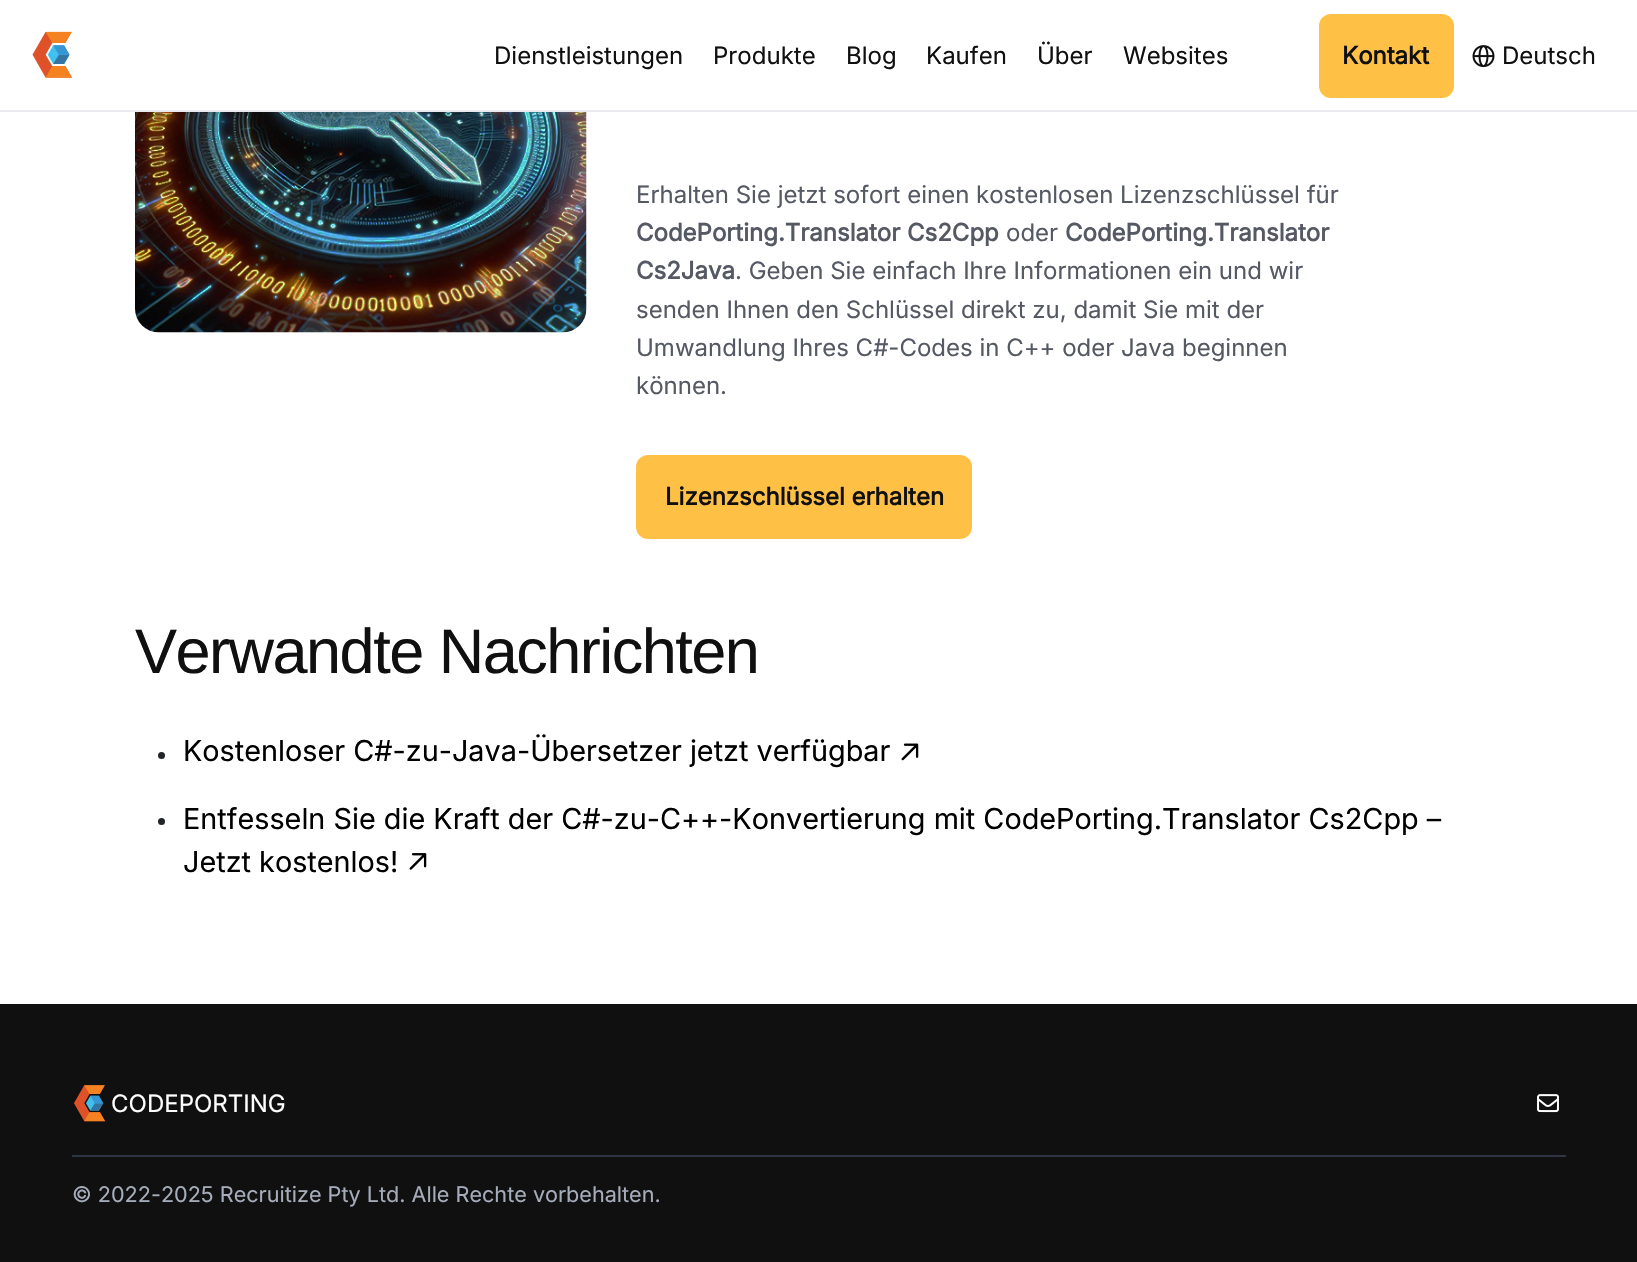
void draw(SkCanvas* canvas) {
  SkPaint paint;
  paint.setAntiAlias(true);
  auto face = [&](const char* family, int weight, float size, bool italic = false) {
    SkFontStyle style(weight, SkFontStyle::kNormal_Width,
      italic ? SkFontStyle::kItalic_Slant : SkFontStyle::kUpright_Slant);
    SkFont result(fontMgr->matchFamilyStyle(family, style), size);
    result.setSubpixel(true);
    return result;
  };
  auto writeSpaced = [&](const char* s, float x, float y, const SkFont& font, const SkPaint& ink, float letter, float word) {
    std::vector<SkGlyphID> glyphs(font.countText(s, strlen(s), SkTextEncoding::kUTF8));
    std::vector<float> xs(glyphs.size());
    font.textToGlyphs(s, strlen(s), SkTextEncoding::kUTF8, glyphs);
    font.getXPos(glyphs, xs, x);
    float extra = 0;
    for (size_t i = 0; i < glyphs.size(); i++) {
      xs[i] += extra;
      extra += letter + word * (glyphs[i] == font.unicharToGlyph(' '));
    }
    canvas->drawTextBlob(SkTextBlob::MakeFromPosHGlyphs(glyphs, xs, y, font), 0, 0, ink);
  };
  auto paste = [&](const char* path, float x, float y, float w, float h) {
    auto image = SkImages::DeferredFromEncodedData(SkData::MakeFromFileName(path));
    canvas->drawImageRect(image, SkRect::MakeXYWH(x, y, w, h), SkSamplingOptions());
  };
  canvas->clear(0xffffffff);
  paint.setColor(0xffeaebf0);
  canvas->drawRect(SkRect::MakeXYWH(0, 110, 1637, 2), paint);
  paste("img/1.png", 32, 31, 40, 47);
  paint.setColor(0xffffc046);
  canvas->drawRoundRect(SkRect::MakeXYWH(1319, 14, 135, 84), 12, 12, paint);
  paste("img/2.png", 1472, 45, 23, 23);
  paste("img/3.png", 135, 112, 452, 221);
  canvas->drawRoundRect(SkRect::MakeXYWH(636, 455, 336, 84), 12, 12, paint);
  paint.setColor(0xff212529);
  canvas->drawCircle(161.5f, 755.5f, 3.5f, paint);
  paste("img/4.png", 901, 743, 18, 18);
  canvas->drawCircle(161.5f, 821.5f, 3.5f, paint);
  paste("img/5.png", 409, 853, 18, 17);
  paint.setColor(0xff101010);
  canvas->drawRect(SkRect::MakeXYWH(0, 1004, 1637, 258), paint);
  paste("img/6.png", 74, 1085, 31, 37);
  paste("img/7.png", 1537, 1094, 22, 19);
  paint.setColor(0xff2e3545);
  canvas->drawRect(SkRect::MakeXYWH(72, 1155, 1494, 2), paint);
  auto f0 = face("Inter", 400, 24);
  paint.setColor(0xff101010);
  {
    const struct { const char* s; float x, y; } items[] = {
      {"Dienstleistungen", 494, 64},
      {"Produkte", 713, 64},
      {"Blog", 846, 64},
      {"Kaufen", 926, 64},
      {"Über", 1037, 64},
      {"Websites", 1123, 64},
    };
    for (auto [s, x, y] : items) {
      canvas->drawString(s, x, y, f0, paint);
    }
  }
  auto f1 = face("Inter", 700, 24);
  canvas->drawString("Kontakt", 1342, 64, f1, paint);
  canvas->drawString("Deutsch", 1502, 64, f0, paint);
  paint.setColor(0xff555964);
  canvas->drawString("Erhalten Sie jetzt sofort einen kostenlosen Lizenzschlüssel für", 636, 203, f0, paint);
  canvas->drawString("CodePorting.Translator Cs2Cpp", 636, 241, f1, paint);
  canvas->drawString("oder", 1006, 241, f0, paint);
  canvas->drawString("CodePorting.Translator", 1065, 241, f1, paint);
  canvas->drawString("Cs2Java", 636, 279, f1, paint);
  {
    const struct { const char* s; float x, y; } items[] = {
      {". Geben Sie einfach Ihre Informationen ein und wir", 735, 279},
      {"senden Ihnen den Schlüssel direkt zu, damit Sie mit der", 636, 318},
      {"Umwandlung Ihres C#-Codes in C++ oder Java beginnen", 636, 356},
      {"können.", 636, 394},
    };
    for (auto [s, x, y] : items) {
      canvas->drawString(s, x, y, f0, paint);
    }
  }
  paint.setColor(0xff101010);
  canvas->drawString("Lizenzschlüssel erhalten", 665, 505, f1, paint);
  auto f2 = face("Liberation Sans", 400, 63);
  writeSpaced("Verwandte Nachrichten", 135, 673, f2, paint, -1.5f, 0);
  auto f3 = face("Inter", 400, 28.8f);
  paint.setColor(0xff000000);
  {
    const struct { const char* s; float x, y; } items[] = {
      {"Kostenloser C#-zu-Java-Übersetzer jetzt verfügbar", 183, 761},
      {"Entfesseln Sie die Kraft der C#-zu-C++-Konvertierung mit CodePorting.Translator Cs2Cpp –", 183, 829},
      {"Jetzt kostenlos!", 183, 872},
    };
    for (auto [s, x, y] : items) {
      canvas->drawString(s, x, y, f3, paint);
    }
  }
  paint.setColor(0xffffffff);
  canvas->drawString("CODEPORTING", 111, 1112, f0, paint);
  auto f4 = face("Inter", 400, 21.6f);
  paint.setColor(0xffa5acba);
  canvas->drawString("© 2022-2025 Recruitize Pty Ltd. Alle Rechte vorbehalten.", 72, 1202, f4, paint);
}
